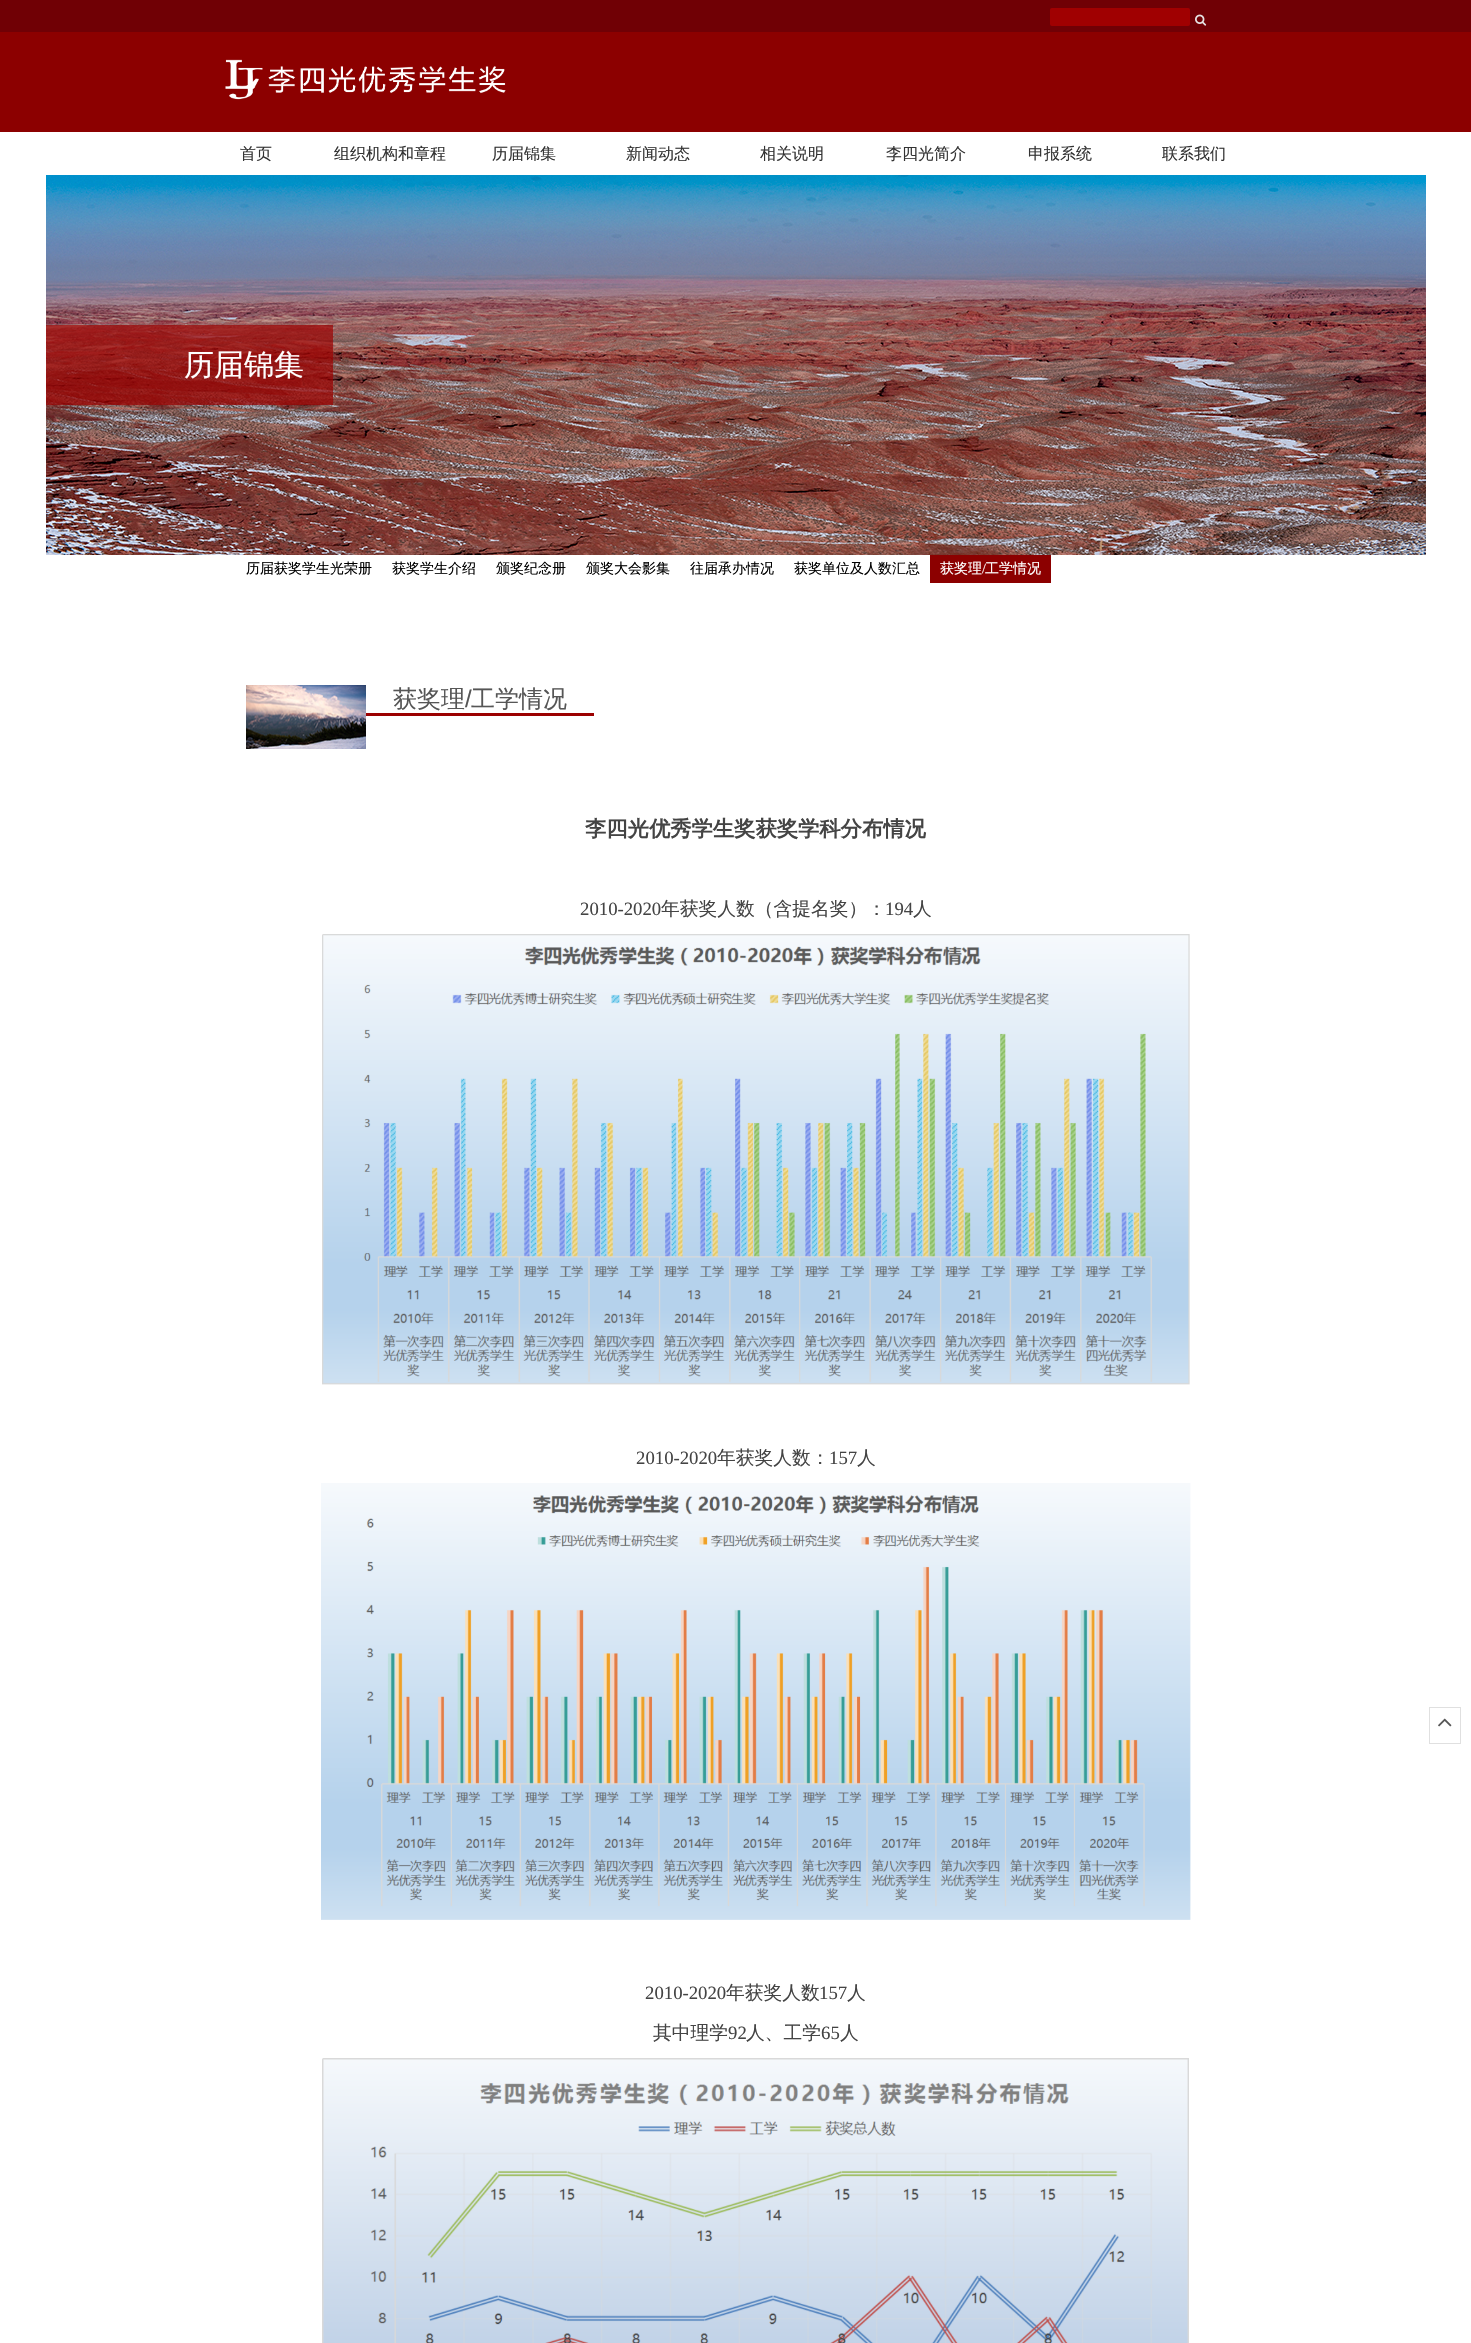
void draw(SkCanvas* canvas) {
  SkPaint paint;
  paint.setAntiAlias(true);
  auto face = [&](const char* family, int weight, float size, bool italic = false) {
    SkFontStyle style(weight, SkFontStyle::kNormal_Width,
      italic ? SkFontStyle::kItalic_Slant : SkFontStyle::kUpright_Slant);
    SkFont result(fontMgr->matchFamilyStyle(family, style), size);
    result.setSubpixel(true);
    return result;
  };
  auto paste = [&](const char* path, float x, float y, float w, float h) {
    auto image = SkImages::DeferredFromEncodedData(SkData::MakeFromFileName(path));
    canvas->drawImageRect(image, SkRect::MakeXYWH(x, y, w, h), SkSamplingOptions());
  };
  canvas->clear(0xffffffff);
  paint.setColor(0xff700005);
  canvas->drawRect(SkRect::MakeXYWH(0, 0, 1471, 32), paint);
  paint.setColor(0xffa00001);
  canvas->drawRoundRect(SkRect::MakeXYWH(1050, 8, 140, 18), 2, 2, paint);
  paste("img/1.png", 1195, 14, 12, 12);
  paint.setColor(0xff8c0000);
  canvas->drawRect(SkRect::MakeXYWH(0, 32, 1471, 100), paint);
  paste("img/2.png", 225, 59, 281, 41);
  paste("img/3.png", 46, 175, 1380, 380);
  paint.setColor(0xb39b0000);
  canvas->drawRect(SkRect::MakeXYWH(46, 325, 287, 80), paint);
  paint.setColor(0xff8c0000);
  canvas->drawRect(SkRect::MakeXYWH(930, 555, 121, 28), paint);
  paste("img/4.png", 246, 685, 120, 64);
  paint.setColor(0xff9b0000);
  canvas->drawRect(SkRect::MakeXYWH(366, 713, 228, 3), paint);
  paste("img/5.png", 322, 934, 868, 451);
  paste("img/6.png", 321, 1483, 870, 437);
  paste("img/7.png", 322, 2058, 867, 285);
  paint.setStroke(true);
  paint.setStrokeWidth(1);
  paint.setColor(0xffe0e0e0);
  canvas->drawRect(SkRect::MakeXYWH(1429.5f, 1707.5f, 31, 36), paint);
  paste("img/8.png", 1438, 1718, 14, 9);
  auto f0 = face("WenQuanYi Zen Hei", 500, 16);
  paint.setStroke(false);
  paint.setColor(0xff333333);
  {
    const struct { const char* s; float x, y; } items[] = {
      {"首页", 240, 159},
      {"组织机构和章程", 334, 159},
      {"历届锦集", 492, 159},
      {"新闻动态", 626, 159},
      {"相关说明", 760, 159},
      {"李四光简介", 886, 159},
      {"申报系统", 1028, 159},
      {"联系我们", 1162, 159},
    };
    for (auto [s, x, y] : items) {
      canvas->drawString(s, x, y, f0, paint);
    }
  }
  auto f1 = face("WenQuanYi Zen Hei", 500, 30);
  paint.setColor(0xffffffff);
  canvas->drawString("历届锦集", 184, 375, f1, paint);
  auto f2 = face("WenQuanYi Zen Hei", 500, 14);
  paint.setColor(0xff000000);
  {
    const struct { const char* s; float x, y; } items[] = {
      {"历届获奖学生光荣册", 246, 573},
      {"获奖学生介绍", 392, 573},
      {"颁奖纪念册", 496, 573},
      {"颁奖大会影集", 586, 573},
      {"往届承办情况", 690, 573},
      {"获奖单位及人数汇总", 794, 573},
    };
    for (auto [s, x, y] : items) {
      canvas->drawString(s, x, y, f2, paint);
    }
  }
  paint.setColor(0xffffffff);
  canvas->drawString("获奖理", 940, 573, f2, paint);
  auto f3 = face("Liberation Serif", 400, 14);
  canvas->drawString("/", 982, 573, f3, paint);
  canvas->drawString("工学情况", 985, 573, f2, paint);
  auto f4 = face("WenQuanYi Zen Hei", 500, 24);
  paint.setColor(0xff565656);
  canvas->drawString("获奖理", 393, 707, f4, paint);
  auto f5 = face("Liberation Sans", 400, 24);
  canvas->drawString("/", 465, 707, f5, paint);
  canvas->drawString("工学情况", 471, 707, f4, paint);
  auto f6 = face("WenQuanYi Zen Hei", 700, 21.3f);
  paint.setColor(0xff444444);
  canvas->drawString("李四光优秀学生奖获奖学科分布情况", 585, 836, f6, paint);
  auto f7 = face("Liberation Serif", 400, 18.75f);
  canvas->drawString("2010-2020", 580, 915, f7, paint);
  auto f8 = face("WenQuanYi Zen Hei", 500, 18.75f);
  canvas->drawString("年获奖人数（含提名奖）：", 661, 915, f8, paint);
  canvas->drawString("194", 885, 915, f7, paint);
  canvas->drawString("人", 913, 915, f8, paint);
  canvas->drawString("2010-2020", 636, 1464, f7, paint);
  canvas->drawString("年获奖人数：", 717, 1464, f8, paint);
  canvas->drawString("157", 829, 1464, f7, paint);
  canvas->drawString("人", 857, 1464, f8, paint);
  canvas->drawString("2010-2020", 645, 1999, f7, paint);
  canvas->drawString("年获奖人数", 726, 1999, f8, paint);
  canvas->drawString("157", 819, 1999, f7, paint);
  canvas->drawString("人", 847, 1999, f8, paint);
  canvas->drawString("其中理学", 653, 2039, f8, paint);
  canvas->drawString("92", 728, 2039, f7, paint);
  canvas->drawString("人、工学", 746, 2039, f8, paint);
  canvas->drawString("65", 821, 2039, f7, paint);
  canvas->drawString("人", 840, 2039, f8, paint);
}
